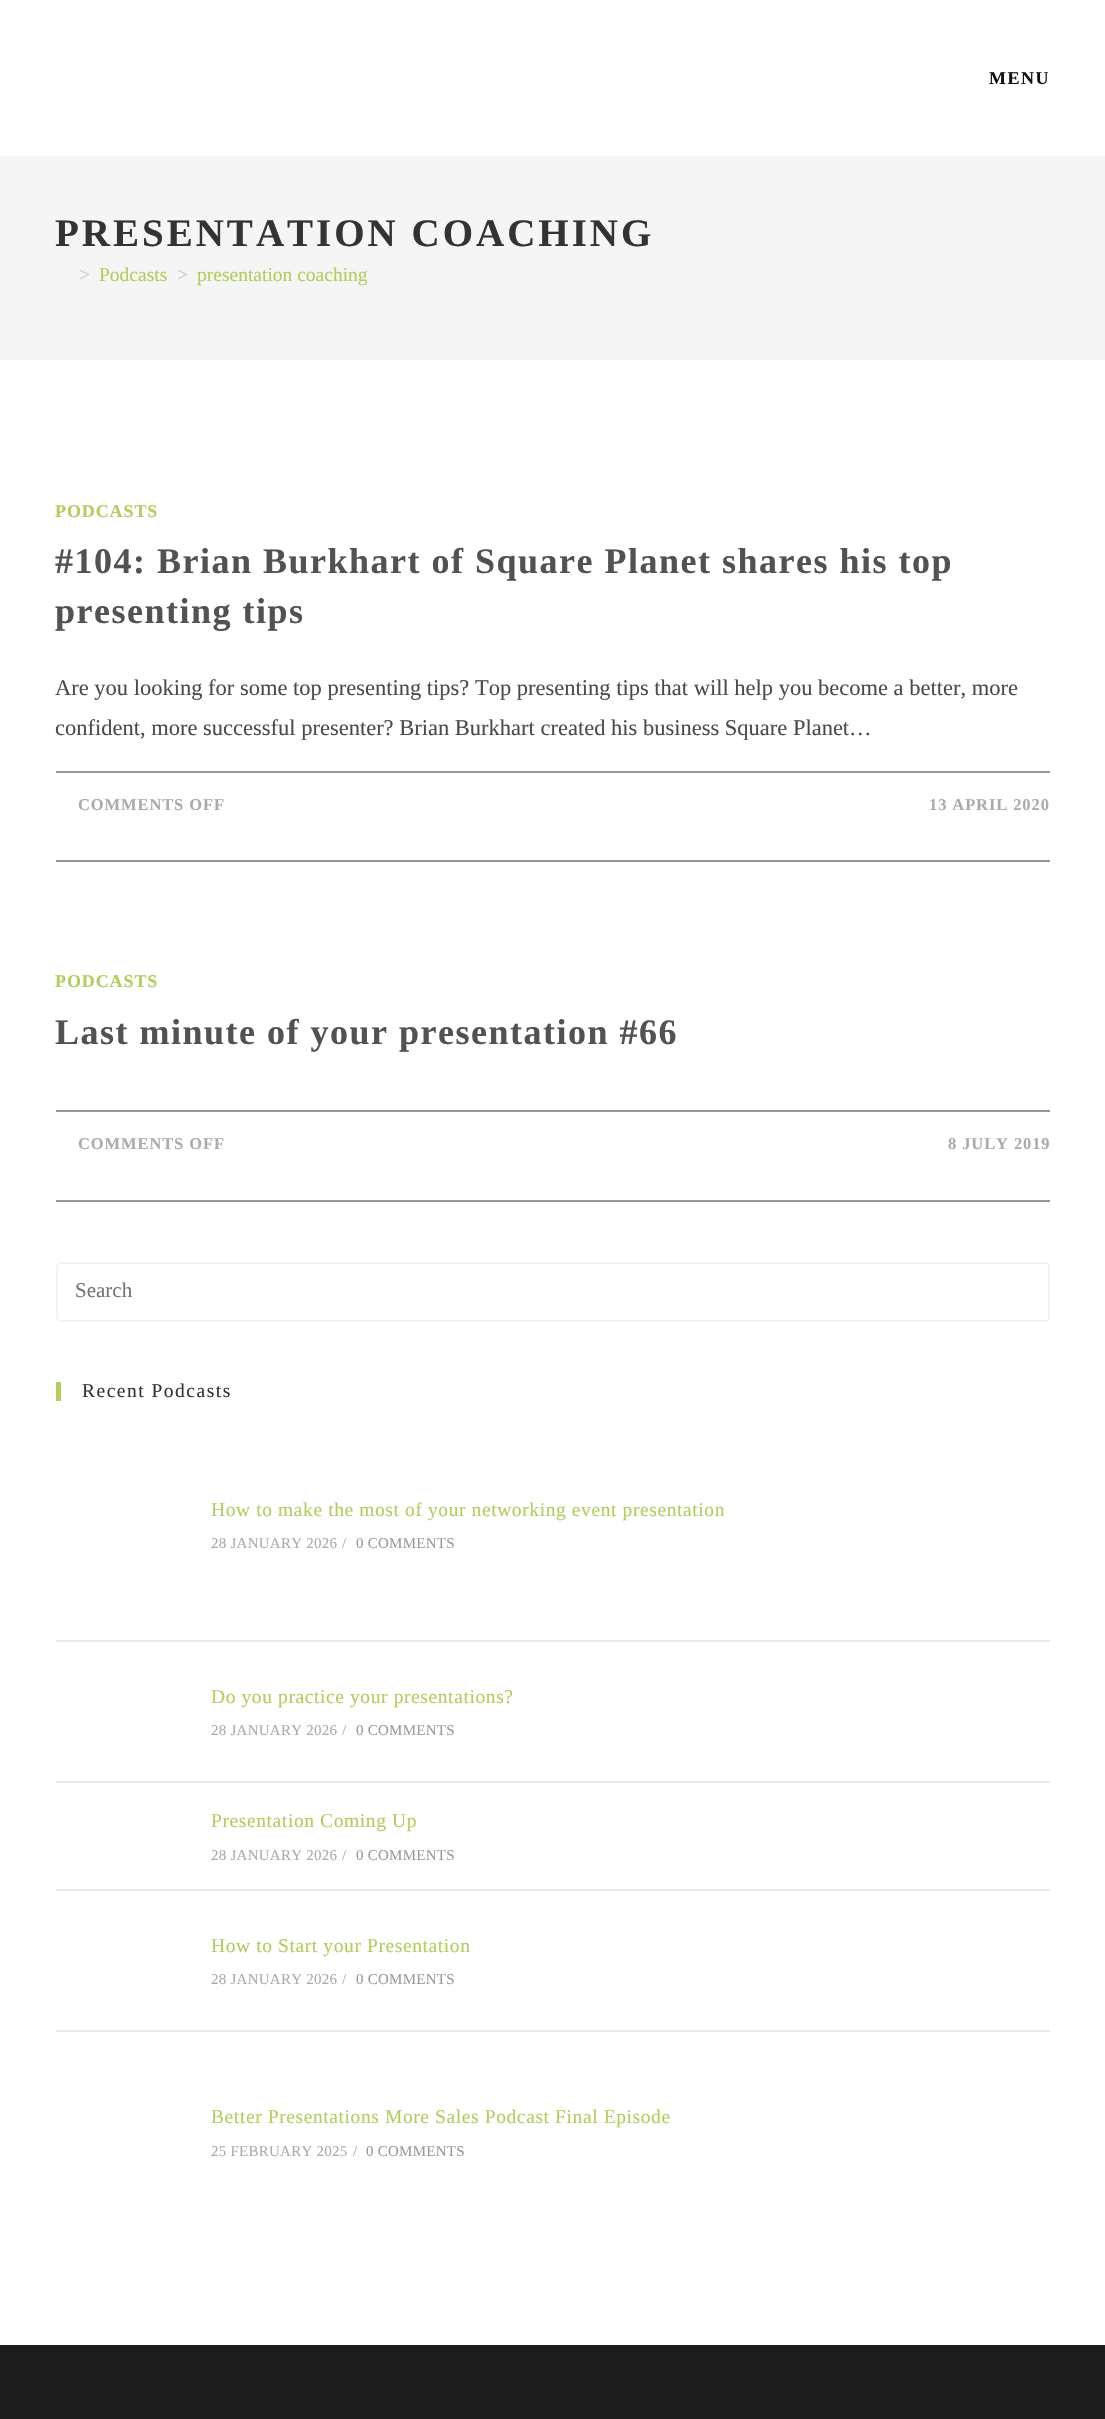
void draw(SkCanvas* canvas) {
  SkPaint paint;
  paint.setAntiAlias(true);
  auto face = [&](const char* family, int weight, float size, bool italic = false) {
    SkFontStyle style(weight, SkFontStyle::kNormal_Width,
      italic ? SkFontStyle::kItalic_Slant : SkFontStyle::kUpright_Slant);
    SkFont result(fontMgr->matchFamilyStyle(family, style), size);
    result.setSubpixel(true);
    return result;
  };
  auto writeSpaced = [&](const char* s, float x, float y, const SkFont& font, const SkPaint& ink, float letter, float word) {
    std::vector<SkGlyphID> glyphs(font.countText(s, strlen(s), SkTextEncoding::kUTF8));
    std::vector<float> xs(glyphs.size());
    font.textToGlyphs(s, strlen(s), SkTextEncoding::kUTF8, glyphs);
    font.getXPos(glyphs, xs, x);
    float extra = 0;
    for (size_t i = 0; i < glyphs.size(); i++) {
      xs[i] += extra;
      extra += letter + word * (glyphs[i] == font.unicharToGlyph(' '));
    }
    canvas->drawTextBlob(SkTextBlob::MakeFromPosHGlyphs(glyphs, xs, y, font), 0, 0, ink);
  };
  canvas->clear(0xffffffff);
  {
    const struct { float x, y, w, h; SkColor color; } items[] = {
      {0, 156, 1105, 204, 0xfff5f5f5},
      {56, 860, 994, 2, 0xff979696},
      {56, 771, 994, 2, 0xff979696},
      {56, 1200, 994, 2, 0xff979696},
      {56, 1110, 994, 2, 0xff979696},
    };
    for (auto [x, y, w, h, color] : items) {
      paint.setColor(color);
      canvas->drawRect(SkRect::MakeXYWH(x, y, w, h), paint);
    }
  }
  paint.setStroke(true);
  paint.setStrokeWidth(2);
  paint.setColor(0xfff2f2f2);
  canvas->drawRoundRect(SkRect::MakeXYWH(57, 1263, 992, 58), 4, 4, paint);
  paint.setStroke(false);
  {
    const struct { float x, y, w, h; SkColor color; } items[] = {
      {56, 1382, 5, 19, 0xffb1ce5e},
      {56, 1640, 994, 2, 0xffe9e9e9},
      {56, 1781, 994, 2, 0xffe9e9e9},
      {56, 1889, 994, 2, 0xffe9e9e9},
      {56, 2030, 994, 2, 0xffe9e9e9},
      {0, 2345, 1105, 74, 0xff1c1c1c},
    };
    for (auto [x, y, w, h, color] : items) {
      paint.setColor(color);
      canvas->drawRect(SkRect::MakeXYWH(x, y, w, h), paint);
    }
  }
  auto f0 = face("Liberation Serif", 700, 18);
  paint.setColor(0xff111111);
  writeSpaced("MENU", 989, 84, f0, paint, 1.5f, 0);
  auto f1 = face("Liberation Serif", 700, 39);
  paint.setColor(0xff333333);
  writeSpaced("PRESENTATION COACHING", 55, 246, f1, paint, 3, 0);
  auto f2 = face("Liberation Serif", 400, 19.5f);
  paint.setColor(0xffc6c6c6);
  canvas->drawString(">", 79, 281, f2, paint);
  paint.setColor(0xffb1ce5e);
  canvas->drawString("Podcasts", 99, 281, f2, paint);
  paint.setColor(0xffc6c6c6);
  canvas->drawString(">", 177, 281, f2, paint);
  paint.setColor(0xffb1ce5e);
  canvas->drawString("presentation coaching", 197, 281, f2, paint);
  writeSpaced("PODCASTS", 55, 517, f0, paint, 0.9f, 0);
  auto f3 = face("Liberation Serif", 700, 36);
  paint.setColor(0xff525252);
  writeSpaced("#104: Brian Burkhart of Square Planet shares his top", 55, 573, f3, paint, 1.5f, 0);
  writeSpaced("presenting tips", 55, 623, f3, paint, 1.5f, 0);
  auto f4 = face("Liberation Serif", 400, 22.5f);
  paint.setColor(0xff4a4a4a);
  canvas->drawString("Are you looking for some top presenting tips? Top presenting tips that will help you become a better, more", 55, 695, f4, paint);
  canvas->drawString("confident, more successful presenter? Brian Burkhart created his business Square Planet…", 55, 735, f4, paint);
  auto f5 = face("Liberation Serif", 700, 16.5f);
  paint.setColor(0xffababab);
  writeSpaced("COMMENTS OFF", 78, 810, f5, paint, 0.9f, 0);
  writeSpaced("13 APRIL 2020", 929, 810, f5, paint, 0.9f, 0);
  paint.setColor(0xffb1ce5e);
  writeSpaced("PODCASTS", 55, 987, f0, paint, 0.9f, 0);
  paint.setColor(0xff525252);
  writeSpaced("Last minute of your presentation #66", 55, 1044, f3, paint, 1.5f, 0);
  paint.setColor(0xffababab);
  writeSpaced("COMMENTS OFF", 78, 1149, f5, paint, 0.9f, 0);
  writeSpaced("8 JULY 2019", 948, 1149, f5, paint, 0.9f, 0);
  auto f6 = face("Liberation Serif", 400, 21);
  paint.setColor(0xff757575);
  canvas->drawString("Search", 75, 1297, f6, paint);
  paint.setColor(0xff333333);
  writeSpaced("Recent Podcasts", 82, 1397, f2, paint, 1.5f, 0);
  paint.setColor(0xffb1ce5e);
  writeSpaced("How to make the most of your networking event presentation", 211, 1516, f2, paint, 0.6f, 0);
  auto f7 = face("Liberation Serif", 400, 15);
  paint.setColor(0xffababab);
  writeSpaced("28 JANUARY 2026", 211, 1548, f7, paint, 0.25f, 0);
  writeSpaced("/", 342, 1548, f7, paint, 0.25f, 0);
  paint.setColor(0xff999999);
  writeSpaced("0 COMMENTS", 356, 1548, f7, paint, 0.25f, 0);
  paint.setColor(0xffb1ce5e);
  writeSpaced("Do you practice your presentations?", 211, 1703, f2, paint, 0.6f, 0);
  paint.setColor(0xffababab);
  writeSpaced("28 JANUARY 2026", 211, 1735, f7, paint, 0.25f, 0);
  writeSpaced("/", 342, 1735, f7, paint, 0.25f, 0);
  paint.setColor(0xff999999);
  writeSpaced("0 COMMENTS", 356, 1735, f7, paint, 0.25f, 0);
  paint.setColor(0xffb1ce5e);
  writeSpaced("Presentation Coming Up", 211, 1827, f2, paint, 0.6f, 0);
  paint.setColor(0xffababab);
  writeSpaced("28 JANUARY 2026", 211, 1860, f7, paint, 0.25f, 0);
  writeSpaced("/", 342, 1860, f7, paint, 0.25f, 0);
  paint.setColor(0xff999999);
  writeSpaced("0 COMMENTS", 356, 1860, f7, paint, 0.25f, 0);
  paint.setColor(0xffb1ce5e);
  writeSpaced("How to Start your Presentation", 211, 1952, f2, paint, 0.6f, 0);
  paint.setColor(0xffababab);
  writeSpaced("28 JANUARY 2026", 211, 1984, f7, paint, 0.25f, 0);
  writeSpaced("/", 342, 1984, f7, paint, 0.25f, 0);
  paint.setColor(0xff999999);
  writeSpaced("0 COMMENTS", 356, 1984, f7, paint, 0.25f, 0);
  paint.setColor(0xffb1ce5e);
  writeSpaced("Better Presentations More Sales Podcast Final Episode", 211, 2123, f2, paint, 0.6f, 0);
  paint.setColor(0xffababab);
  writeSpaced("25 FEBRUARY 2025", 211, 2156, f7, paint, 0.25f, 0);
  writeSpaced("/", 353, 2156, f7, paint, 0.25f, 0);
  paint.setColor(0xff999999);
  writeSpaced("0 COMMENTS", 366, 2156, f7, paint, 0.25f, 0);
}
